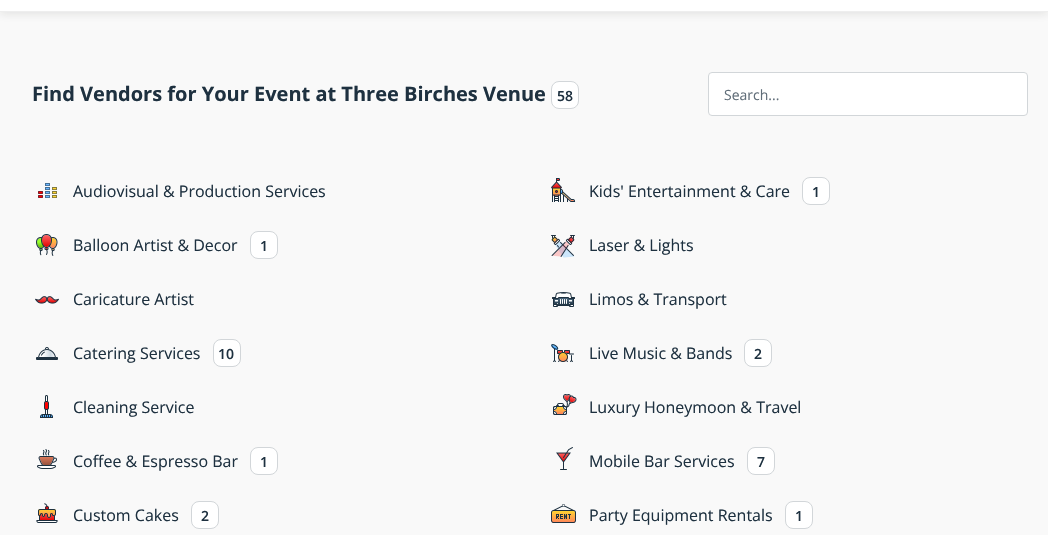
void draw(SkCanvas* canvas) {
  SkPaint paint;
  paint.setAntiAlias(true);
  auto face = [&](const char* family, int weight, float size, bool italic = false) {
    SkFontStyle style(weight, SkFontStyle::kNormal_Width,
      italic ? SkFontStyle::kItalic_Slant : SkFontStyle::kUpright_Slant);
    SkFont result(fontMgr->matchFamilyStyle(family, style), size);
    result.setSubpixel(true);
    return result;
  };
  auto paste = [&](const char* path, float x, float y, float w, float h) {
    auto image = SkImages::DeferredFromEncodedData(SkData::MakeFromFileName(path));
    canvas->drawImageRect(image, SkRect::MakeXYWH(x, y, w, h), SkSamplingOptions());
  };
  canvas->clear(0xfff9f9f9);
  paint.setColor(0x1a191915);
  paint.setMaskFilter(SkMaskFilter::MakeBlur(kNormal_SkBlurStyle, 5));
  canvas->drawRect(SkRect::MakeXYWH(0, -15, 1048, 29), paint);
  paint.setMaskFilter(nullptr);
  paint.setColor(0xffffffff);
  canvas->drawRect(SkRect::MakeXYWH(0, 0, 1048, 11), paint);
  paint.setColor(0xffeeeeee);
  canvas->drawRect(SkRect::MakeXYWH(0, 11, 1048, 1), paint);
  paint.setColor(0xffffffff);
  canvas->drawRoundRect(SkRect::MakeXYWH(551.5f, 81.5f, 27, 27), 7.5f, 7.5f, paint);
  paint.setStroke(true);
  paint.setStrokeWidth(1);
  paint.setColor(0xffd2d6d9);
  canvas->drawRoundRect(SkRect::MakeXYWH(551.5f, 81.5f, 27, 27), 7.5f, 7.5f, paint);
  paint.setStroke(false);
  paint.setColor(0xffffffff);
  canvas->drawRoundRect(SkRect::MakeXYWH(708.5f, 72.5f, 319, 43), 3.5f, 3.5f, paint);
  paint.setStroke(true);
  paint.setColor(0xffd2d6d9);
  canvas->drawRoundRect(SkRect::MakeXYWH(708.5f, 72.5f, 319, 43), 3.5f, 3.5f, paint);
  paste("img/1.png", 38, 183, 19, 15);
  paste("img/2.png", 551, 178, 25, 24);
  paint.setStroke(false);
  paint.setColor(0xffffffff);
  canvas->drawRoundRect(SkRect::MakeXYWH(802.5f, 177.5f, 27, 27), 7.5f, 7.5f, paint);
  paint.setStroke(true);
  paint.setColor(0xffd2d6d9);
  canvas->drawRoundRect(SkRect::MakeXYWH(802.5f, 177.5f, 27, 27), 7.5f, 7.5f, paint);
  paste("img/3.png", 36, 234, 22, 22);
  paint.setStroke(false);
  paint.setColor(0xffffffff);
  canvas->drawRoundRect(SkRect::MakeXYWH(250.5f, 231.5f, 27, 27), 7.5f, 7.5f, paint);
  paint.setStroke(true);
  paint.setColor(0xffd2d6d9);
  canvas->drawRoundRect(SkRect::MakeXYWH(250.5f, 231.5f, 27, 27), 7.5f, 7.5f, paint);
  paste("img/4.png", 551, 235, 24, 23);
  paste("img/5.png", 35, 296, 24, 8);
  paste("img/6.png", 552, 292, 23, 15);
  paste("img/7.png", 36, 347, 22, 13);
  paint.setStroke(false);
  paint.setColor(0xffffffff);
  canvas->drawRoundRect(SkRect::MakeXYWH(213.5f, 339.5f, 27, 27), 7.5f, 7.5f, paint);
  paint.setStroke(true);
  paint.setColor(0xffd2d6d9);
  canvas->drawRoundRect(SkRect::MakeXYWH(213.5f, 339.5f, 27, 27), 7.5f, 7.5f, paint);
  paste("img/8.png", 551, 344, 23, 18);
  paint.setStroke(false);
  paint.setColor(0xffffffff);
  canvas->drawRoundRect(SkRect::MakeXYWH(744.5f, 339.5f, 27, 27), 7.5f, 7.5f, paint);
  paint.setStroke(true);
  paint.setColor(0xffd2d6d9);
  canvas->drawRoundRect(SkRect::MakeXYWH(744.5f, 339.5f, 27, 27), 7.5f, 7.5f, paint);
  paste("img/9.png", 40, 395, 13, 23);
  paste("img/10.png", 553, 394, 24, 21);
  paste("img/11.png", 37, 449, 20, 20);
  paint.setStroke(false);
  paint.setColor(0xffffffff);
  canvas->drawRoundRect(SkRect::MakeXYWH(250.5f, 447.5f, 27, 27), 7.5f, 7.5f, paint);
  paint.setStroke(true);
  paint.setColor(0xffd2d6d9);
  canvas->drawRoundRect(SkRect::MakeXYWH(250.5f, 447.5f, 27, 27), 7.5f, 7.5f, paint);
  paste("img/12.png", 556, 447, 17, 23);
  paint.setStroke(false);
  paint.setColor(0xffffffff);
  canvas->drawRoundRect(SkRect::MakeXYWH(747.5f, 447.5f, 27, 27), 7.5f, 7.5f, paint);
  paint.setStroke(true);
  paint.setColor(0xffd2d6d9);
  canvas->drawRoundRect(SkRect::MakeXYWH(747.5f, 447.5f, 27, 27), 7.5f, 7.5f, paint);
  paste("img/13.png", 36, 503, 22, 20);
  paint.setStroke(false);
  paint.setColor(0xffffffff);
  canvas->drawRoundRect(SkRect::MakeXYWH(191.5f, 501.5f, 27, 27), 7.5f, 7.5f, paint);
  paint.setStroke(true);
  paint.setColor(0xffd2d6d9);
  canvas->drawRoundRect(SkRect::MakeXYWH(191.5f, 501.5f, 27, 27), 7.5f, 7.5f, paint);
  paste("img/14.png", 551, 504, 25, 19);
  paint.setStroke(false);
  paint.setColor(0xffffffff);
  canvas->drawRoundRect(SkRect::MakeXYWH(785.5f, 501.5f, 27, 27), 7.5f, 7.5f, paint);
  paint.setStroke(true);
  paint.setColor(0xffd2d6d9);
  canvas->drawRoundRect(SkRect::MakeXYWH(785.5f, 501.5f, 27, 27), 7.5f, 7.5f, paint);
  auto f0 = face("Open Sans", 700, 20);
  paint.setStroke(false);
  paint.setColor(0xff1e3140);
  canvas->drawString("Find Vendors for Your Event at Three Birches Venue", 32, 101, f0, paint);
  auto f1 = face("Open Sans", 600, 14);
  canvas->drawString("58", 557, 101, f1, paint);
  auto f2 = face("Open Sans", 400, 14);
  paint.setColor(0xff616e79);
  canvas->drawString("Search...", 724, 100, f2, paint);
  auto f3 = face("Open Sans", 400, 16);
  paint.setColor(0xff1e3140);
  canvas->drawString("Audiovisual & Production Services", 73, 197, f3, paint);
  canvas->drawString("Kids' Entertainment & Care", 589, 197, f3, paint);
  canvas->drawString("1", 812, 197, f1, paint);
  canvas->drawString("Balloon Artist & Decor", 73, 251, f3, paint);
  canvas->drawString("1", 260, 251, f1, paint);
  {
    const struct { const char* s; float x, y; } items[] = {
      {"Laser & Lights", 589, 251},
      {"Caricature Artist", 73, 305},
      {"Limos & Transport", 589, 305},
      {"Catering Services", 73, 359},
    };
    for (auto [s, x, y] : items) {
      canvas->drawString(s, x, y, f3, paint);
    }
  }
  canvas->drawString("10", 218, 359, f1, paint);
  canvas->drawString("Live Music & Bands", 589, 359, f3, paint);
  canvas->drawString("2", 754, 359, f1, paint);
  {
    const struct { const char* s; float x, y; } items[] = {
      {"Cleaning Service", 73, 413},
      {"Luxury Honeymoon & Travel", 589, 413},
      {"Coffee & Espresso Bar", 73, 467},
    };
    for (auto [s, x, y] : items) {
      canvas->drawString(s, x, y, f3, paint);
    }
  }
  canvas->drawString("1", 260, 467, f1, paint);
  canvas->drawString("Mobile Bar Services", 589, 467, f3, paint);
  canvas->drawString("7", 757, 467, f1, paint);
  canvas->drawString("Custom Cakes", 73, 521, f3, paint);
  canvas->drawString("2", 201, 521, f1, paint);
  canvas->drawString("Party Equipment Rentals", 589, 521, f3, paint);
  canvas->drawString("1", 795, 521, f1, paint);
}
